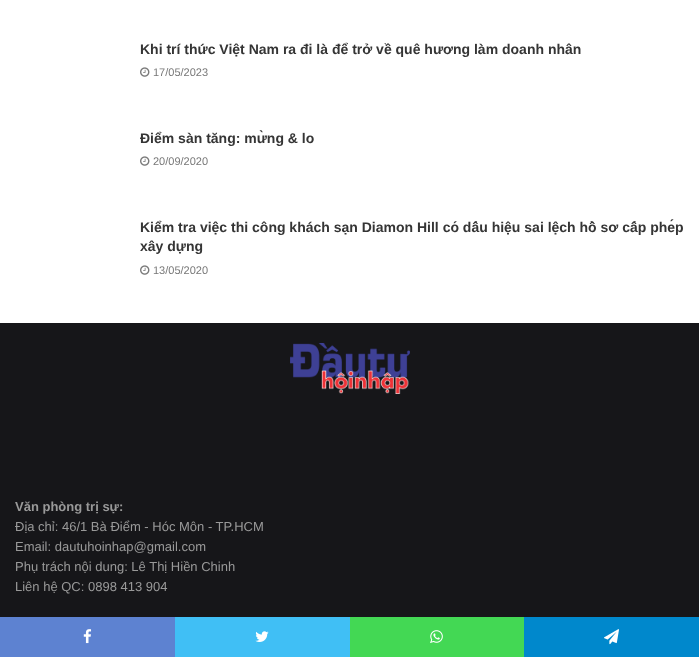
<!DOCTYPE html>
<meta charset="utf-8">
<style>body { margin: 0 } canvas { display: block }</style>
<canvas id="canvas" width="699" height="657"></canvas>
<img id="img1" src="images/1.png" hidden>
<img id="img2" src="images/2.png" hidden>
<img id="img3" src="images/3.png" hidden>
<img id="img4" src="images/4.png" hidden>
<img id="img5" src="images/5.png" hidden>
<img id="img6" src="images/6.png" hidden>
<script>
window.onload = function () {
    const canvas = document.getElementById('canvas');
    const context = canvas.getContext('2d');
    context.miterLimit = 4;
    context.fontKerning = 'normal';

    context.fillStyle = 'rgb(255, 255, 255)';
    context.fillRect(0, 0, 699, 657);
    context.drawImage(document.getElementById('img1'), 140, 67, 10, 10);
    context.drawImage(document.getElementById('img1'), 140, 156, 10, 10);
    context.drawImage(document.getElementById('img1'), 140, 265, 10, 10);
    context.fillStyle = 'rgb(22, 22, 25)';
    context.fillRect(0, 323, 699, 294);
    context.drawImage(document.getElementById('img2'), 290, 343, 120, 51);
    context.fillStyle = 'rgb(93, 130, 209)';
    context.fillRect(0, 617, 175, 40);
    context.drawImage(document.getElementById('img3'), 83, 629, 9, 15);
    context.fillStyle = 'rgb(64, 191, 245)';
    context.fillRect(175, 617, 175, 40);
    context.drawImage(document.getElementById('img4'), 255, 631, 14, 11);
    context.fillStyle = 'rgb(67, 216, 84)';
    context.fillRect(350, 617, 174, 40);
    context.drawImage(document.getElementById('img5'), 430, 630, 13, 13);
    context.fillStyle = 'rgb(0, 136, 204)';
    context.fillRect(524, 617, 175, 40);
    context.drawImage(document.getElementById('img6'), 604, 629, 15, 16);
    context.font = 'bold 14px Liberation Sans';
    context.fillStyle = 'rgb(53, 53, 53)';
    context.fillText('Khi trí thức Việt Nam ra đi là để trở về quê hương làm doanh nhân', 140, 54);
    context.font = '11px Liberation Sans';
    context.fillStyle = 'rgb(120, 120, 120)';
    context.fillText('17/05/2023', 153, 76);
    context.font = 'bold 14px Liberation Sans';
    context.fillStyle = 'rgb(53, 53, 53)';
    context.fillText('Điểm sàn tăng: mừng & lo', 140, 143);
    context.font = '11px Liberation Sans';
    context.fillStyle = 'rgb(120, 120, 120)';
    context.fillText('20/09/2020', 153, 165);
    context.font = 'bold 14px Liberation Sans';
    context.fillStyle = 'rgb(53, 53, 53)';
    context.fillText('Kiểm tra việc thi công khách sạn Diamon Hill có dấu hiệu sai lệch hồ sơ cấp phép', 140, 232);
    context.fillText('xây dựng', 140, 251);
    context.font = '11px Liberation Sans';
    context.fillStyle = 'rgb(120, 120, 120)';
    context.fillText('13/05/2020', 153, 274);
    context.font = 'bold 13px Liberation Sans';
    context.fillStyle = 'rgb(153, 153, 153)';
    context.fillText('Văn phòng trị sự:', 15, 511);
    context.font = '13px Liberation Sans';
    context.fillText('Địa chỉ: 46/1 Bà Điểm - Hóc Môn - TP.HCM', 15, 531);
    context.fillText('Email: dautuhoinhap@gmail.com', 15, 551);
    context.fillText('Phụ trách nội dung: Lê Thị Hiền Chinh', 15, 571);
    context.fillText('Liên hệ QC: 0898 413 904', 15, 591);
};
</script>
